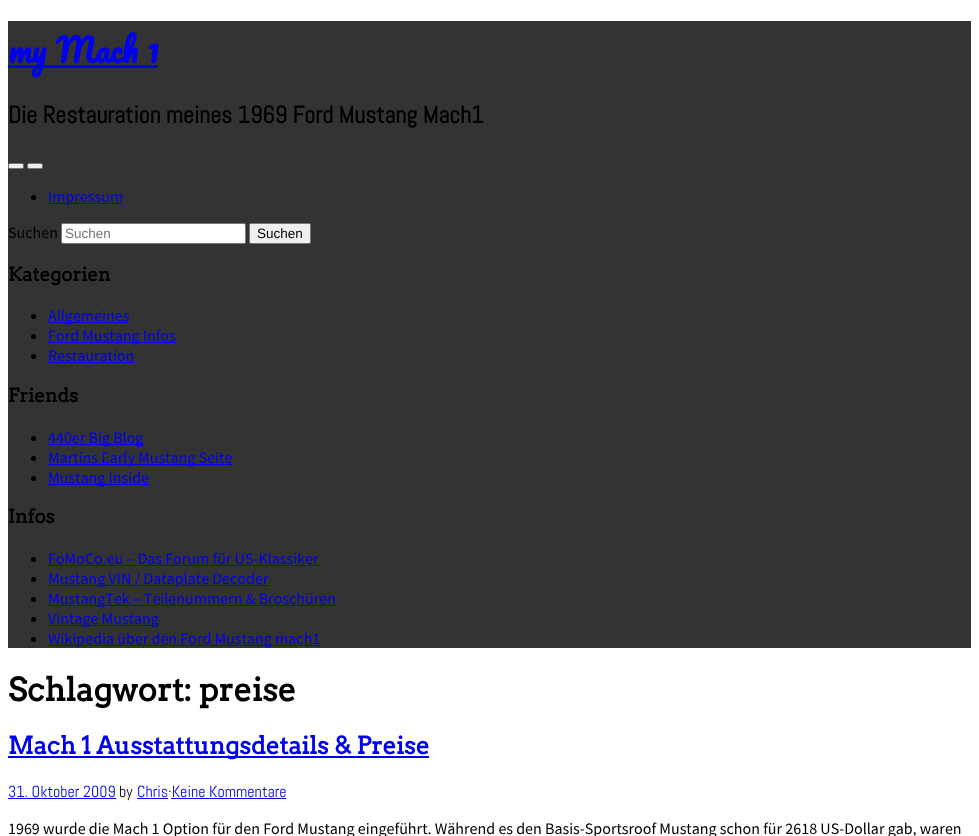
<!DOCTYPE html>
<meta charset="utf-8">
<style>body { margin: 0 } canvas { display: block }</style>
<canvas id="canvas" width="979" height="836"></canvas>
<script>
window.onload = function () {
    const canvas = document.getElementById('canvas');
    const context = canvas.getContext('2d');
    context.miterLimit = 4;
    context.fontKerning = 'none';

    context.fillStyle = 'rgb(255, 255, 255)';
    context.fillRect(0, 0, 979, 836);
    context.fillStyle = 'rgb(51, 51, 51)';
    context.fillRect(8, 21, 963, 627);
    context.fillStyle = 'rgb(0, 0, 238)';
    context.fillRect(8, 65, 150, 3);
    context.fillStyle = 'rgb(239, 239, 239)';
    context.beginPath();
    context.roundRect(8.5, 163.5, 15, 5, 1.5);
    context.fill();
    context.strokeStyle = 'rgb(118, 118, 118)';
    context.stroke();
    context.beginPath();
    context.roundRect(27.5, 163.5, 15, 5, 1.5);
    context.fill();
    context.stroke();
    context.fillStyle = 'rgb(0, 0, 0)';
    context.beginPath();
    context.arc(33.5, 197.5, 2.5, 0, 2 * Math.PI);
    context.fill();
    context.fillStyle = 'rgb(0, 0, 238)';
    context.fillRect(48, 203, 75, 1);
    context.fillStyle = 'rgb(255, 255, 255)';
    context.beginPath();
    context.roundRect(61.5, 223.5, 184, 20, 1.5);
    context.fill();
    context.stroke();
    context.fillStyle = 'rgb(239, 239, 239)';
    context.beginPath();
    context.roundRect(249.5, 223.5, 61, 20, 1.5);
    context.fill();
    context.stroke();
    context.fillStyle = 'rgb(0, 0, 0)';
    context.beginPath();
    context.arc(33.5, 316.5, 2.5, 0, 2 * Math.PI);
    context.fill();
    context.fillStyle = 'rgb(0, 0, 238)';
    context.fillRect(48, 322, 81, 1);
    context.fillStyle = 'rgb(0, 0, 0)';
    context.beginPath();
    context.arc(33.5, 336.5, 2.5, 0, 2 * Math.PI);
    context.fill();
    context.fillStyle = 'rgb(0, 0, 238)';
    context.fillRect(48, 342, 128, 1);
    context.fillStyle = 'rgb(0, 0, 0)';
    context.beginPath();
    context.arc(33.5, 356.5, 2.5, 0, 2 * Math.PI);
    context.fill();
    context.fillStyle = 'rgb(0, 0, 238)';
    context.fillRect(48, 362, 86, 1);
    context.fillStyle = 'rgb(0, 0, 0)';
    context.beginPath();
    context.arc(33.5, 438.5, 2.5, 0, 2 * Math.PI);
    context.fill();
    context.fillStyle = 'rgb(0, 0, 238)';
    context.fillRect(48, 444, 95, 1);
    context.fillStyle = 'rgb(0, 0, 0)';
    context.beginPath();
    context.arc(33.5, 458.5, 2.5, 0, 2 * Math.PI);
    context.fill();
    context.fillStyle = 'rgb(0, 0, 238)';
    context.fillRect(48, 464, 184, 1);
    context.fillStyle = 'rgb(0, 0, 0)';
    context.beginPath();
    context.arc(33.5, 478.5, 2.5, 0, 2 * Math.PI);
    context.fill();
    context.fillStyle = 'rgb(0, 0, 238)';
    context.fillRect(48, 484, 101, 1);
    context.fillStyle = 'rgb(0, 0, 0)';
    context.beginPath();
    context.arc(33.5, 559.5, 2.5, 0, 2 * Math.PI);
    context.fill();
    context.fillStyle = 'rgb(0, 0, 238)';
    context.fillRect(48, 565, 271, 1);
    context.fillStyle = 'rgb(0, 0, 0)';
    context.beginPath();
    context.arc(33.5, 579.5, 2.5, 0, 2 * Math.PI);
    context.fill();
    context.fillStyle = 'rgb(0, 0, 238)';
    context.fillRect(48, 585, 220, 1);
    context.fillStyle = 'rgb(0, 0, 0)';
    context.beginPath();
    context.arc(33.5, 599.5, 2.5, 0, 2 * Math.PI);
    context.fill();
    context.fillStyle = 'rgb(0, 0, 238)';
    context.fillRect(48, 605, 288, 1);
    context.fillStyle = 'rgb(0, 0, 0)';
    context.beginPath();
    context.arc(33.5, 619.5, 2.5, 0, 2 * Math.PI);
    context.fill();
    context.fillStyle = 'rgb(0, 0, 238)';
    context.fillRect(48, 625, 111, 1);
    context.fillStyle = 'rgb(0, 0, 0)';
    context.beginPath();
    context.arc(33.5, 639.5, 2.5, 0, 2 * Math.PI);
    context.fill();
    context.fillStyle = 'rgb(0, 0, 238)';
    context.fillRect(48, 645, 272, 1);
    context.fillRect(8, 756, 421, 2);
    context.fillRect(8, 798, 108, 1);
    context.fillRect(137, 798, 31, 1);
    context.fillRect(171, 798, 115, 1);
    context.wordSpacing = '1px';
    context.font = 'bold 32px Pacifico';
    context.fillText('my Mach 1', 8, 63);
    context.wordSpacing = '0px';
    context.font = 'bold 24px Abel';
    context.fillStyle = 'rgb(0, 0, 0)';
    context.fillText('Die Restauration meines 1969 Ford Mustang Mach1', 8, 123);
    context.font = '16px Source Sans Pro';
    context.fillStyle = 'rgb(0, 0, 238)';
    context.fillText('Impressum', 48, 202);
    context.fillStyle = 'rgb(0, 0, 0)';
    context.fillText('Suchen', 8, 238);
    context.font = '13.5px Liberation Sans';
    context.fillStyle = 'rgb(117, 117, 117)';
    context.fillText('Suchen', 65, 238);
    context.fillStyle = 'rgb(0, 0, 0)';
    context.fillText('Suchen', 257, 238);
    context.font = 'bold 18.75px Arvo';
    context.fillText('Kategorien', 8, 281);
    context.font = '16px Source Sans Pro';
    context.fillStyle = 'rgb(0, 0, 238)';
    context.fillText('Allgemeines', 48, 321);
    context.fillText('Ford Mustang Infos', 48, 341);
    context.fillText('Restauration', 48, 361);
    context.font = 'bold 18.75px Arvo';
    context.fillStyle = 'rgb(0, 0, 0)';
    context.fillText('Friends', 8, 402);
    context.font = '16px Source Sans Pro';
    context.fillStyle = 'rgb(0, 0, 238)';
    context.fillText('440er Big Blog', 48, 443);
    context.fillText('Martins Early Mustang Seite', 48, 463);
    context.fillText('Mustang Inside', 48, 483);
    context.font = 'bold 18.75px Arvo';
    context.fillStyle = 'rgb(0, 0, 0)';
    context.fillText('Infos', 8, 523);
    context.font = '16px Source Sans Pro';
    context.fillStyle = 'rgb(0, 0, 238)';
    context.fillText('FoMoCo.eu – Das Forum für US-Klassiker', 48, 564);
    context.fillText('Mustang VIN / Dataplate Decoder', 48, 584);
    context.fillText('MustangTek – Teilenummern & Broschüren', 48, 604);
    context.fillText('Vintage Mustang', 48, 624);
    context.fillText('Wikipedia über den Ford Mustang mach1', 48, 644);
    context.font = 'bold 32px Arvo';
    context.fillStyle = 'rgb(0, 0, 0)';
    context.fillText('Schlagwort: preise', 8, 701);
    context.font = 'bold 24px Arvo';
    context.fillStyle = 'rgb(0, 0, 238)';
    context.fillText('Mach 1 Ausstattungsdetails & Preise', 8, 754);
    context.font = '16px Abel';
    context.fillText('31. Oktober 2009', 8, 797);
    context.fillStyle = 'rgb(0, 0, 0)';
    context.fillText('by', 119, 797);
    context.fillStyle = 'rgb(0, 0, 238)';
    context.fillText('Chris Keine Kommentare', 137, 797);
    context.fillStyle = 'rgb(0, 0, 0)';
    context.fillText('·', 168, 797);
    context.font = '16px Source Sans Pro';
    context.fillText('1969 wurde die Mach 1 Option für den Ford Mustang eingeführt. Während es den Basis-Sportsroof Mustang schon für 2618 US-Dollar gab, waren', 8, 834);
};
</script>
